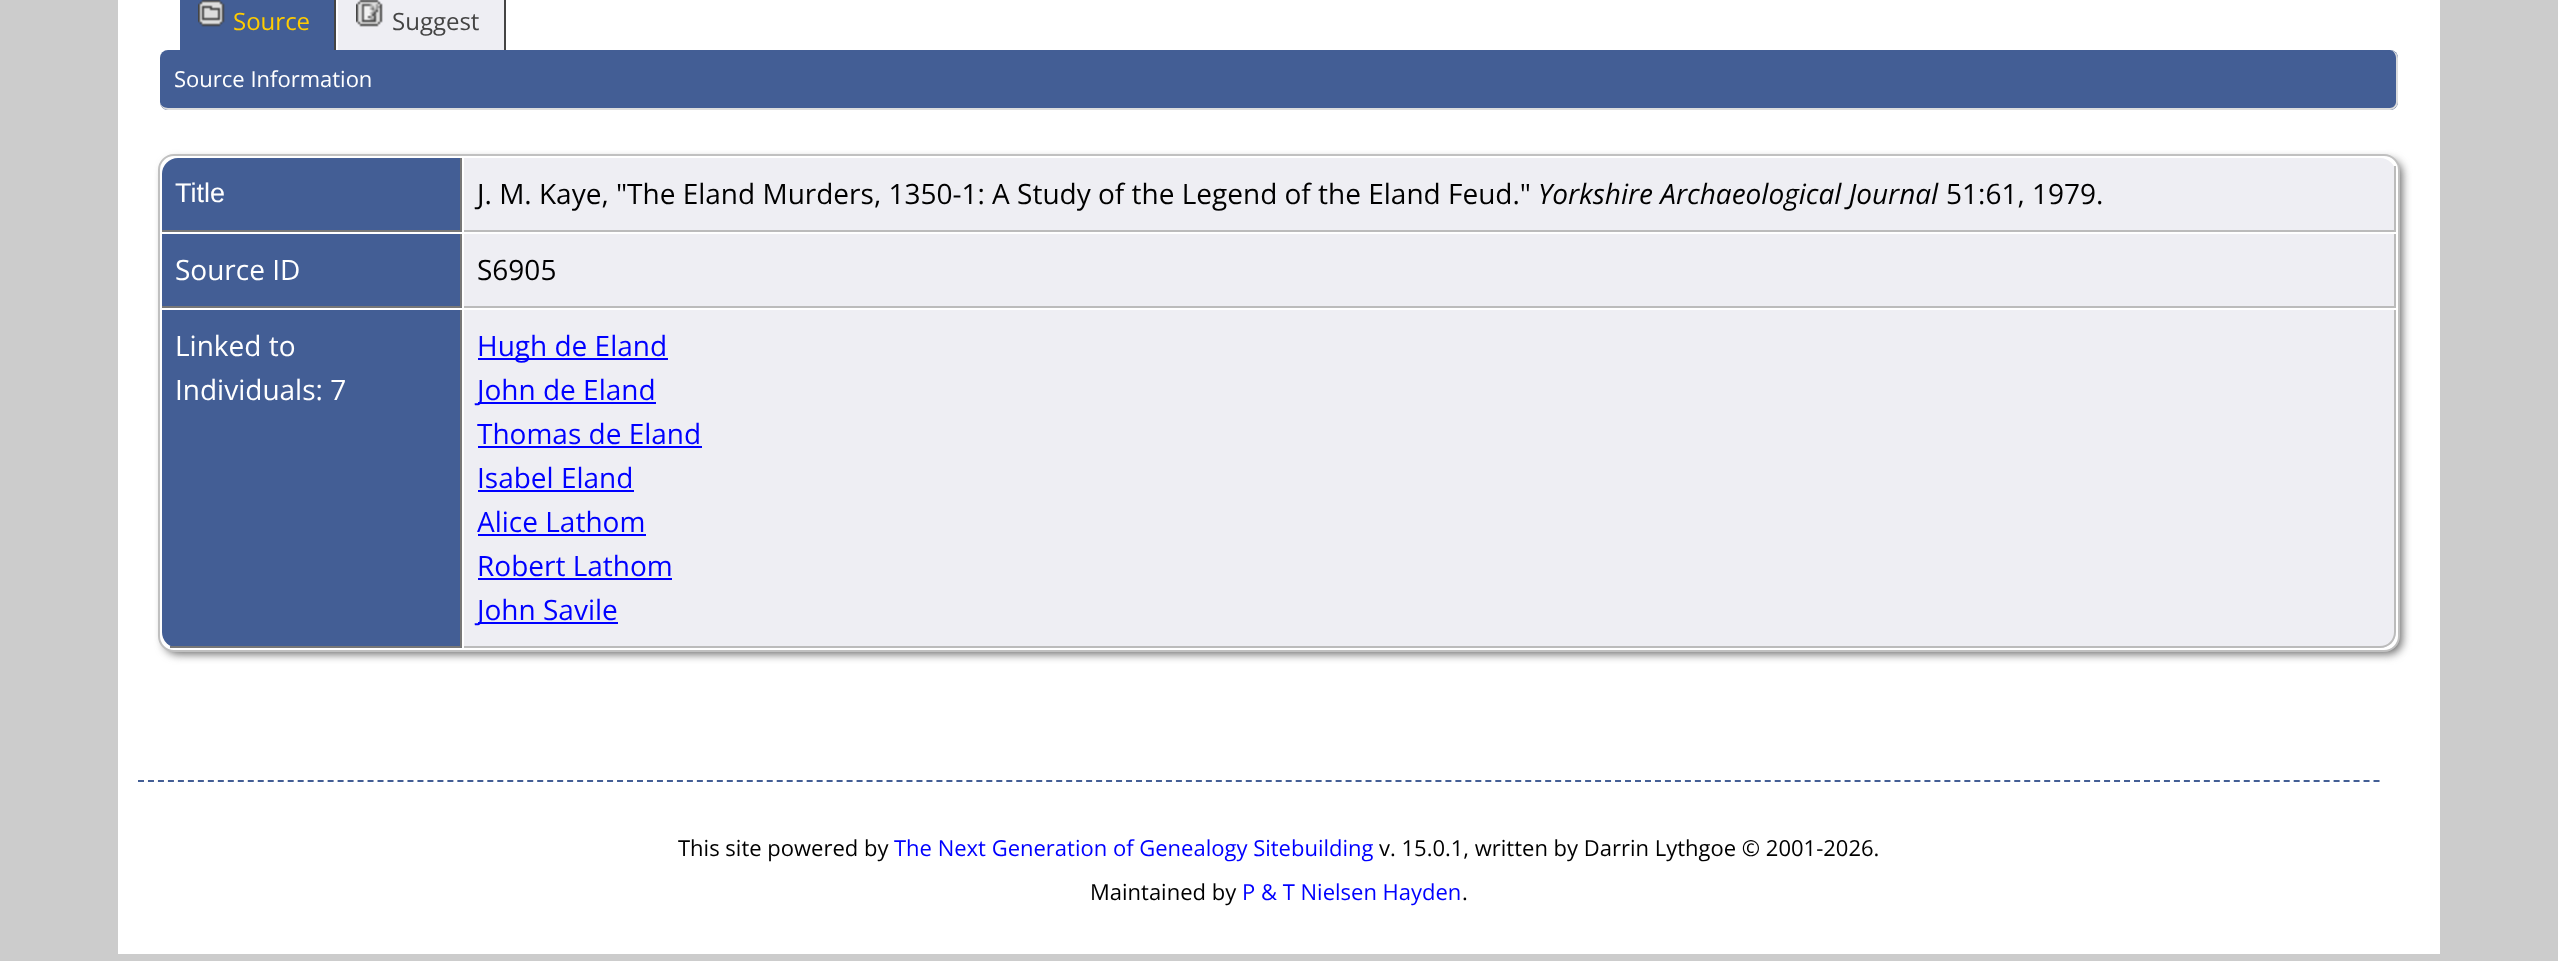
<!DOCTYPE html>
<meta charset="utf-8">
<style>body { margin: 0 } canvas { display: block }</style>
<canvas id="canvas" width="2558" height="961"></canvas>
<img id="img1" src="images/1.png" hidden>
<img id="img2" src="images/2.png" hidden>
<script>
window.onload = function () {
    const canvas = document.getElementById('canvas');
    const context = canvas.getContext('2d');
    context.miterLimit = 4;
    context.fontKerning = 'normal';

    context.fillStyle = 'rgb(204, 204, 204)';
    context.fillRect(0, 0, 2558, 961);
    context.fillStyle = 'rgb(255, 255, 255)';
    context.fillRect(118, 0, 2322, 954);
    context.fillStyle = 'rgb(67, 94, 149)';
    context.fillRect(180, 0, 154, 50);
    context.fillStyle = 'rgb(68, 68, 68)';
    context.fillRect(334, 0, 2, 50);
    context.drawImage(document.getElementById('img1'), 198, 0, 27, 27);
    context.fillStyle = 'rgb(238, 238, 243)';
    context.fillRect(338, 0, 166, 50);
    context.fillStyle = 'rgb(68, 68, 68)';
    context.fillRect(504, 0, 2, 50);
    context.drawImage(document.getElementById('img2'), 356, 0, 27, 27);
    context.fillStyle = 'rgb(67, 94, 149)';
    context.beginPath();
    context.roundRect(160, 50, 2238, 60, 8);
    context.fill();
    context.fillStyle = 'rgb(221, 221, 221)';
    context.beginPath();
    context.moveTo(168, 50);
    context.lineTo(2390, 50);
    context.bezierCurveTo(2394, 50, 2398, 54, 2398, 58);
    context.lineTo(2398, 102);
    context.bezierCurveTo(2398, 106, 2394, 110, 2390, 110);
    context.lineTo(168, 110);
    context.bezierCurveTo(164, 110, 160, 106, 160, 102);
    context.lineTo(160, 58);
    context.bezierCurveTo(160, 54, 164, 50, 168, 50);
    context.closePath();
    context.moveTo(168, 50);
    context.lineTo(2390, 50);
    context.bezierCurveTo(2393, 50, 2396, 54, 2396, 58);
    context.lineTo(2396, 102);
    context.bezierCurveTo(2396, 105, 2393, 108, 2390, 108);
    context.lineTo(168, 108);
    context.bezierCurveTo(164, 108, 160, 105, 160, 102);
    context.lineTo(160, 58);
    context.bezierCurveTo(160, 54, 164, 50, 168, 50);
    context.closePath();
    context.fill('evenodd');
    context.fillStyle = 'rgb(102, 102, 102)';
    context.filter = 'blur(5px)';
    context.beginPath();
    context.roundRect(164, 160, 2238, 494, 14);
    context.fill();
    context.filter = 'none';
    context.fillStyle = 'rgb(255, 255, 255)';
    context.beginPath();
    context.roundRect(159, 155, 2240, 496, 15);
    context.fill();
    context.strokeStyle = 'rgb(192, 192, 192)';
    context.lineWidth = 2;
    context.stroke();
    context.fillStyle = 'rgb(67, 94, 149)';
    context.beginPath();
    context.roundRect(162, 158, 300, 74, [16, 0, 0, 0]);
    context.fill();
    context.fillStyle = 'rgb(119, 119, 119)';
    context.fillRect(460, 158, 2, 74);
    context.fillRect(162, 230, 300, 2);
    context.fillStyle = 'rgb(238, 238, 243)';
    context.beginPath();
    context.roundRect(464, 158, 1932, 74, [0, 16, 0, 0]);
    context.fill();
    context.fillStyle = 'rgb(187, 187, 187)';
    context.fillRect(2394, 166, 2, 66);
    context.fillRect(464, 230, 1932, 2);
    context.fillStyle = 'rgb(67, 94, 149)';
    context.fillRect(162, 234, 298, 72);
    context.fillStyle = 'rgb(119, 119, 119)';
    context.fillRect(460, 234, 2, 74);
    context.fillRect(162, 306, 300, 2);
    context.fillStyle = 'rgb(238, 238, 243)';
    context.fillRect(464, 234, 1930, 72);
    context.fillStyle = 'rgb(187, 187, 187)';
    context.fillRect(2394, 234, 2, 74);
    context.fillRect(464, 306, 1932, 2);
    context.fillStyle = 'rgb(67, 94, 149)';
    context.beginPath();
    context.roundRect(162, 310, 300, 338, [0, 0, 0, 16]);
    context.fill();
    context.fillStyle = 'rgb(119, 119, 119)';
    context.fillRect(460, 310, 2, 338);
    context.fillRect(170, 646, 292, 2);
    context.fillStyle = 'rgb(238, 238, 243)';
    context.beginPath();
    context.roundRect(464, 310, 1932, 338, [0, 0, 16, 0]);
    context.fill();
    context.fillStyle = 'rgb(187, 187, 187)';
    context.beginPath();
    context.moveTo(464, 310);
    context.lineTo(2396, 310);
    context.lineTo(2396, 632);
    context.bezierCurveTo(2396, 641, 2389, 648, 2380, 648);
    context.lineTo(464, 648);
    context.closePath();
    context.moveTo(464, 310);
    context.lineTo(2394, 310);
    context.lineTo(2394, 632);
    context.bezierCurveTo(2394, 640, 2388, 646, 2380, 646);
    context.lineTo(464, 646);
    context.closePath();
    context.fill('evenodd');
    context.fillStyle = 'rgb(0, 0, 255)';
    context.fillRect(478, 358, 190, 2);
    context.fillRect(478, 402, 178, 2);
    context.fillRect(478, 446, 224, 2);
    context.fillRect(478, 490, 156, 2);
    context.fillRect(478, 534, 168, 2);
    context.fillRect(478, 578, 194, 2);
    context.fillRect(478, 622, 140, 2);
    context.beginPath();
    context.moveTo(138, 781);
    context.lineTo(2380, 781);
    context.strokeStyle = 'rgb(67, 94, 149)';
    context.setLineDash([6, 3.98]);
    context.stroke();
    context.font = '24px Open Sans';
    context.fillStyle = 'rgb(255, 204, 0)';
    context.fillText('Source', 233, 30);
    context.fillStyle = 'rgb(68, 68, 68)';
    context.fillText('Suggest', 392, 30);
    context.font = '22px Open Sans';
    context.fillStyle = 'rgb(255, 255, 255)';
    context.fillText('Source Information', 174, 87);
    context.font = '27px Liberation Sans';
    context.fillText('Title', 175, 202);
    context.font = '28px Open Sans';
    context.fillStyle = 'rgb(0, 0, 0)';
    context.fillText('J. M. Kaye, "The Eland Murders, 1350-1: A Study of the Legend of the Eland Feud."', 477, 204);
    context.font = 'italic 28px Open Sans';
    context.fillText('Yorkshire Archaeological Journal', 1538, 204);
    context.font = '28px Open Sans';
    context.fillText('51:61, 1979.', 1946, 204);
    context.fillStyle = 'rgb(255, 255, 255)';
    context.fillText('Source ID', 175, 280);
    context.fillStyle = 'rgb(0, 0, 0)';
    context.fillText('S6905', 477, 280);
    context.fillStyle = 'rgb(255, 255, 255)';
    context.fillText('Linked to', 175, 356);
    context.fillText('Individuals: 7', 175, 400);
    context.fillStyle = 'rgb(0, 0, 255)';
    context.fillText('Hugh de Eland', 477, 356);
    context.fillText('John de Eland', 477, 400);
    context.fillText('Thomas de Eland', 477, 444);
    context.fillText('Isabel Eland', 477, 488);
    context.fillText('Alice Lathom', 477, 532);
    context.fillText('Robert Lathom', 477, 576);
    context.fillText('John Savile', 477, 620);
    context.font = '22px Open Sans';
    context.fillStyle = 'rgb(0, 0, 0)';
    context.fillText('This site powered by', 678, 856);
    context.fillStyle = 'rgb(0, 0, 255)';
    context.fillText('The Next Generation of Genealogy Sitebuilding', 894, 856);
    context.fillStyle = 'rgb(0, 0, 0)';
    context.fillText('v. 15.0.1, written by Darrin Lythgoe © 2001-2026.', 1379, 856);
    context.fillText('Maintained by', 1090, 900);
    context.fillStyle = 'rgb(0, 0, 255)';
    context.fillText('P & T Nielsen Hayden', 1242, 900);
    context.fillStyle = 'rgb(0, 0, 0)';
    context.fillText('.', 1462, 900);
};
</script>
